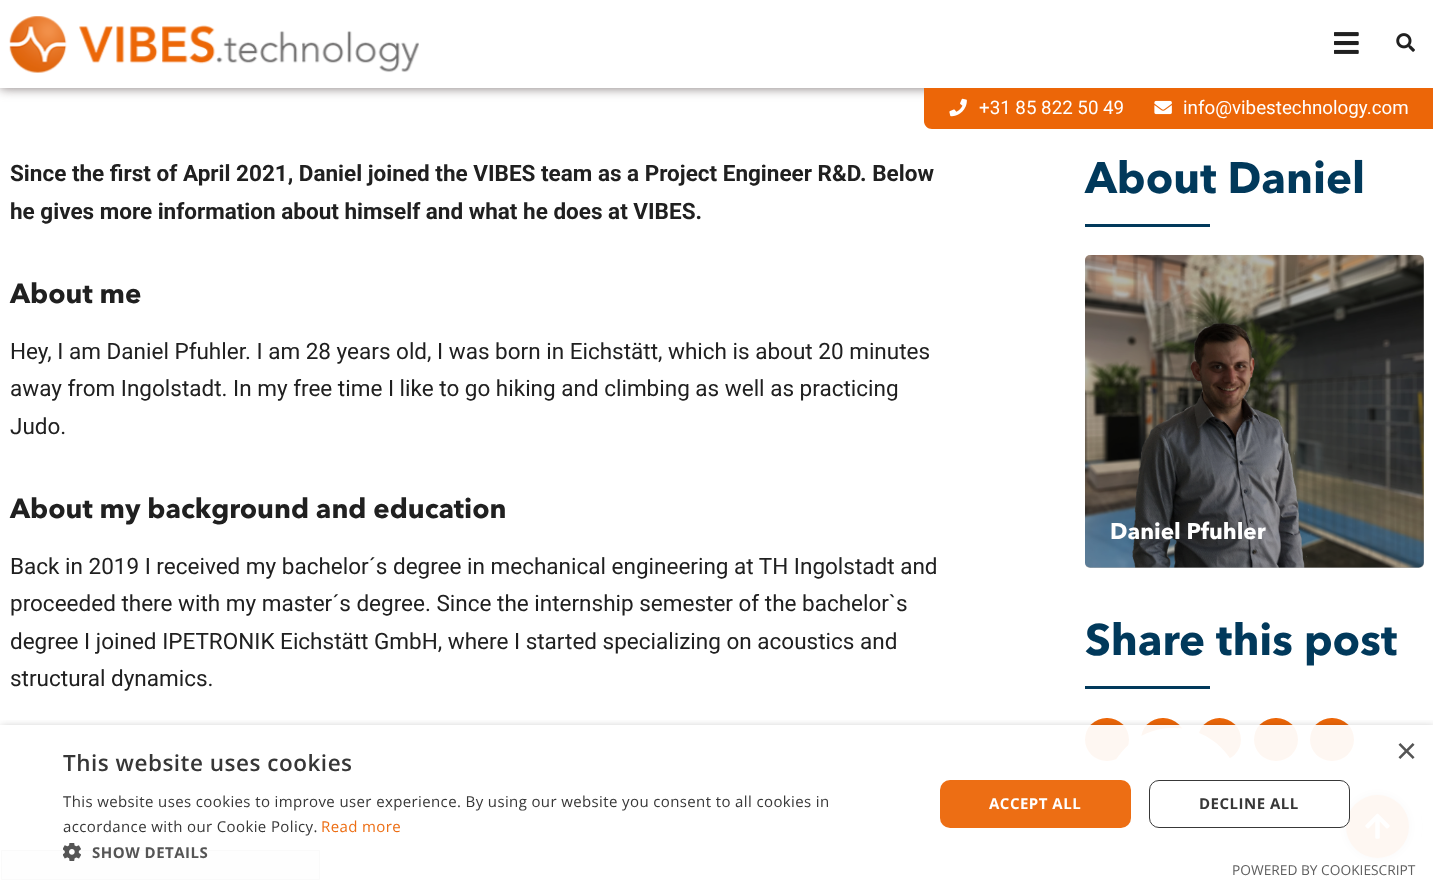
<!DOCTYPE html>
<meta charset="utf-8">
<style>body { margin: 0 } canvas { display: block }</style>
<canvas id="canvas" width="1433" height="882"></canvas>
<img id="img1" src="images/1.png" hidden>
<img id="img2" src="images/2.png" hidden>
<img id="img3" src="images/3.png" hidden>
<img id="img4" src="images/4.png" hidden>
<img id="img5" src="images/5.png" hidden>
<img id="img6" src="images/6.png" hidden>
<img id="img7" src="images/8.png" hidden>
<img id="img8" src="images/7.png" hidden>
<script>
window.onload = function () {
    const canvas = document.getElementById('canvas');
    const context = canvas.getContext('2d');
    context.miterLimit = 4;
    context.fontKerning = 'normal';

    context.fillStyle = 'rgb(255, 255, 255)';
    context.fillRect(0, 0, 1433, 882);
    context.fillStyle = 'rgb(127, 117, 117)';
    context.filter = 'blur(6px)';
    context.beginPath();
    context.rect(0, 0, 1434, 88);
    context.fill();
    context.filter = 'none';
    context.fillStyle = 'rgb(255, 255, 255)';
    context.fillRect(0, 0, 1433, 88);
    context.drawImage(document.getElementById('img1'), 9, 16, 410, 57);
    context.drawImage(document.getElementById('img2'), 1334, 32, 25, 22);
    context.drawImage(document.getElementById('img3'), 1396, 33, 19, 19);
    context.fillStyle = 'rgb(236, 102, 8)';
    context.beginPath();
    context.moveTo(924, 88);
    context.lineTo(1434, 88);
    context.lineTo(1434, 129);
    context.lineTo(932, 129);
    context.bezierCurveTo(927.5, 129, 924, 125.5, 924, 121);
    context.closePath();
    context.fill();
    context.drawImage(document.getElementById('img4'), 949, 98, 18, 19);
    context.drawImage(document.getElementById('img5'), 1154, 100, 18, 15);
    context.fillStyle = 'rgb(1, 57, 91)';
    context.fillRect(1085, 224, 125, 3);
    context.drawImage(document.getElementById('img6'), 1085, 255, 339, 313);
    context.fillStyle = 'rgba(0, 0, 0, 0.3)';
    context.beginPath();
    context.roundRect(1085, 255, 339, 313, 5);
    context.fill();
    context.fillStyle = 'rgb(1, 57, 91)';
    context.fillRect(1085, 686, 125, 3);
    context.fillStyle = 'rgb(236, 102, 8)';
    context.beginPath();
    context.roundRect(1085, 718, 44, 43, 21.5);
    context.fill();
    context.beginPath();
    context.roundRect(1141, 718, 44, 43, 21.5);
    context.fill();
    context.beginPath();
    context.arc(1219.5, 739.5, 21.5, 0, 2 * Math.PI);
    context.fill();
    context.fillStyle = 'rgb(255, 255, 255)';
    context.beginPath();
    context.moveTo(1232, 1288);
    context.lineTo(1116, 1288);
    context.lineTo(1116, 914);
    context.lineTo(1232, 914);
    context.closePath();
    context.moveTo(1173, 863);
    context.bezierCurveTo(1136, 863, 1106, 832, 1106, 795);
    context.bezierCurveTo(1106, 758, 1136, 728, 1173, 728);
    context.bezierCurveTo(1211, 728, 1241, 758, 1241, 795);
    context.bezierCurveTo(1241, 832, 1211, 863, 1173, 863);
    context.closePath();
    context.moveTo(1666, 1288);
    context.lineTo(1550, 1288);
    context.lineTo(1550, 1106);
    context.bezierCurveTo(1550, 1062, 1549, 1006, 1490, 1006);
    context.bezierCurveTo(1430, 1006, 1420, 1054, 1420, 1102);
    context.lineTo(1420, 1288);
    context.lineTo(1304, 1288);
    context.lineTo(1304, 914);
    context.lineTo(1416, 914);
    context.lineTo(1416, 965);
    context.lineTo(1417, 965);
    context.bezierCurveTo(1433, 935, 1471, 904, 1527, 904);
    context.bezierCurveTo(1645, 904, 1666, 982, 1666, 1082);
    context.closePath();
    context.fill();
    context.fillStyle = 'rgb(236, 102, 8)';
    context.beginPath();
    context.roundRect(1254, 718, 44, 43, 21.5);
    context.fill();
    context.beginPath();
    context.roundRect(1310, 718, 44, 43, 21.5);
    context.fill();
    context.fillStyle = 'rgb(230, 230, 230)';
    context.beginPath();
    context.rect(1.5, 850.5, 318, 29);
    context.fill();
    context.strokeStyle = 'rgb(149, 149, 149)';
    context.stroke();
    context.fillStyle = 'rgb(127, 117, 117)';
    context.filter = 'blur(6px)';
    context.beginPath();
    context.roundRect(1346, 795, 63, 63, 31.5);
    context.fill();
    context.filter = 'none';
    context.fillStyle = 'rgb(236, 102, 8)';
    context.beginPath();
    context.arc(1377.5, 826.5, 31.5, 0, 2 * Math.PI);
    context.fill();
    context.drawImage(document.getElementById('img7'), 1365, 813, 25, 26);
    context.save();
    context.beginPath();
    context.rect(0, 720, 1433, 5);
    context.clip();
    context.fillStyle = 'rgba(0, 0, 0, 0.33)';
    context.filter = 'blur(5px)';
    context.beginPath();
    context.rect(1, 728, 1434, 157);
    context.fill();
    context.filter = 'none';
    context.restore();
    context.fillStyle = 'rgba(255, 255, 255, 0.95)';
    context.fillRect(1, 725, 1420, 155);
    context.drawImage(document.getElementById('img8'), 63, 843, 18, 18);
    context.fillStyle = 'rgb(237, 110, 20)';
    context.beginPath();
    context.roundRect(940, 780, 191, 48, 10);
    context.fill();
    context.fillStyle = 'rgba(255, 255, 255, 0.95)';
    context.beginPath();
    context.roundRect(1149, 780, 201, 48, 10);
    context.fill();
    context.beginPath();
    context.roundRect(1149.5, 780.5, 200, 47, 9.5);
    context.strokeStyle = 'rgba(45, 45, 45, 0.95)';
    context.stroke();
    context.font = '18.75px Roboto';
    context.fillStyle = 'rgb(255, 255, 255)';
    context.fillText('+31 85 822 50 49', 979, 114);
    context.fillText('info@vibestechnology.com', 1183, 114);
    context.font = 'bold 22.5px Roboto';
    context.fillStyle = 'rgb(32, 32, 32)';
    context.fillText('Since the first of April 2021, Daniel joined the VIBES team as a Project Engineer R&D. Below', 10, 181);
    context.fillText('he gives more information about himself and what he does at VIBES.', 10, 219);
    context.font = 'bold 27.5px Avenir Next';
    context.fillText('About me', 10, 303);
    context.font = '22.5px Roboto';
    context.fillText('Hey, I am Daniel Pfuhler. I am 28 years old, I was born in Eichstätt, which is about 20 minutes', 10, 359);
    context.fillText('away from Ingolstadt. In my free time I like to go hiking and climbing as well as practicing', 10, 396);
    context.fillText('Judo.', 10, 434);
    context.font = 'bold 27.5px Avenir Next';
    context.fillText('About my background and education', 10, 518);
    context.font = '22.5px Roboto';
    context.fillText('Back in 2019 I received my bachelor´s degree in mechanical engineering at TH Ingolstadt and', 10, 574);
    context.fillText('proceeded there with my master´s degree. Since the internship semester of the bachelor`s', 10, 611);
    context.fillText('degree I joined IPETRONIK Eichstätt GmbH, where I started specializing on acoustics and', 10, 649);
    context.fillText('structural dynamics.', 10, 686);
    context.font = 'bold 43.75px Avenir Next';
    context.fillStyle = 'rgb(1, 57, 91)';
    context.fillText('About Daniel', 1085, 193);
    context.font = 'bold 22.5px Avenir Next';
    context.fillStyle = 'rgb(255, 255, 255)';
    context.fillText('Daniel Pfuhler', 1110, 539);
    context.font = 'bold 43.75px Avenir Next';
    context.fillStyle = 'rgb(1, 57, 91)';
    context.fillText('Share this post', 1085, 655);
    context.font = '36px Liberation Sans';
    context.fillStyle = 'rgb(85, 85, 85)';
    context.fillText('×', 1396, 763);
    context.letterSpacing = '0.5px';
    context.font = '600 22.5px Open Sans';
    context.fillStyle = 'rgb(55, 55, 55)';
    context.fillText('This website uses cookies', 63, 771);
    context.letterSpacing = '0.38px';
    context.font = '15px Open Sans';
    context.fillText('This website uses cookies to improve user experience. By using our website you consent to all cookies in', 63, 807);
    context.fillText('accordance with our Cookie Policy.', 63, 832);
    context.fillStyle = 'rgb(237, 110, 20)';
    context.fillText('Read more', 321, 832);
    context.letterSpacing = '0.5px';
    context.font = 'bold 15px Open Sans';
    context.fillStyle = 'rgb(85, 85, 85)';
    context.fillText('SHOW DETAILS', 92, 858);
    context.fillStyle = 'rgb(255, 255, 255)';
    context.fillText('ACCEPT ALL', 989, 809);
    context.fillStyle = 'rgb(55, 55, 55)';
    context.fillText('DECLINE ALL', 1199, 809);
    context.letterSpacing = '0px';
    context.font = '13.75px Open Sans';
    context.fillStyle = 'rgb(95, 95, 95)';
    context.fillText('POWERED BY COOKIESCRIPT', 1232, 875);
};
</script>
